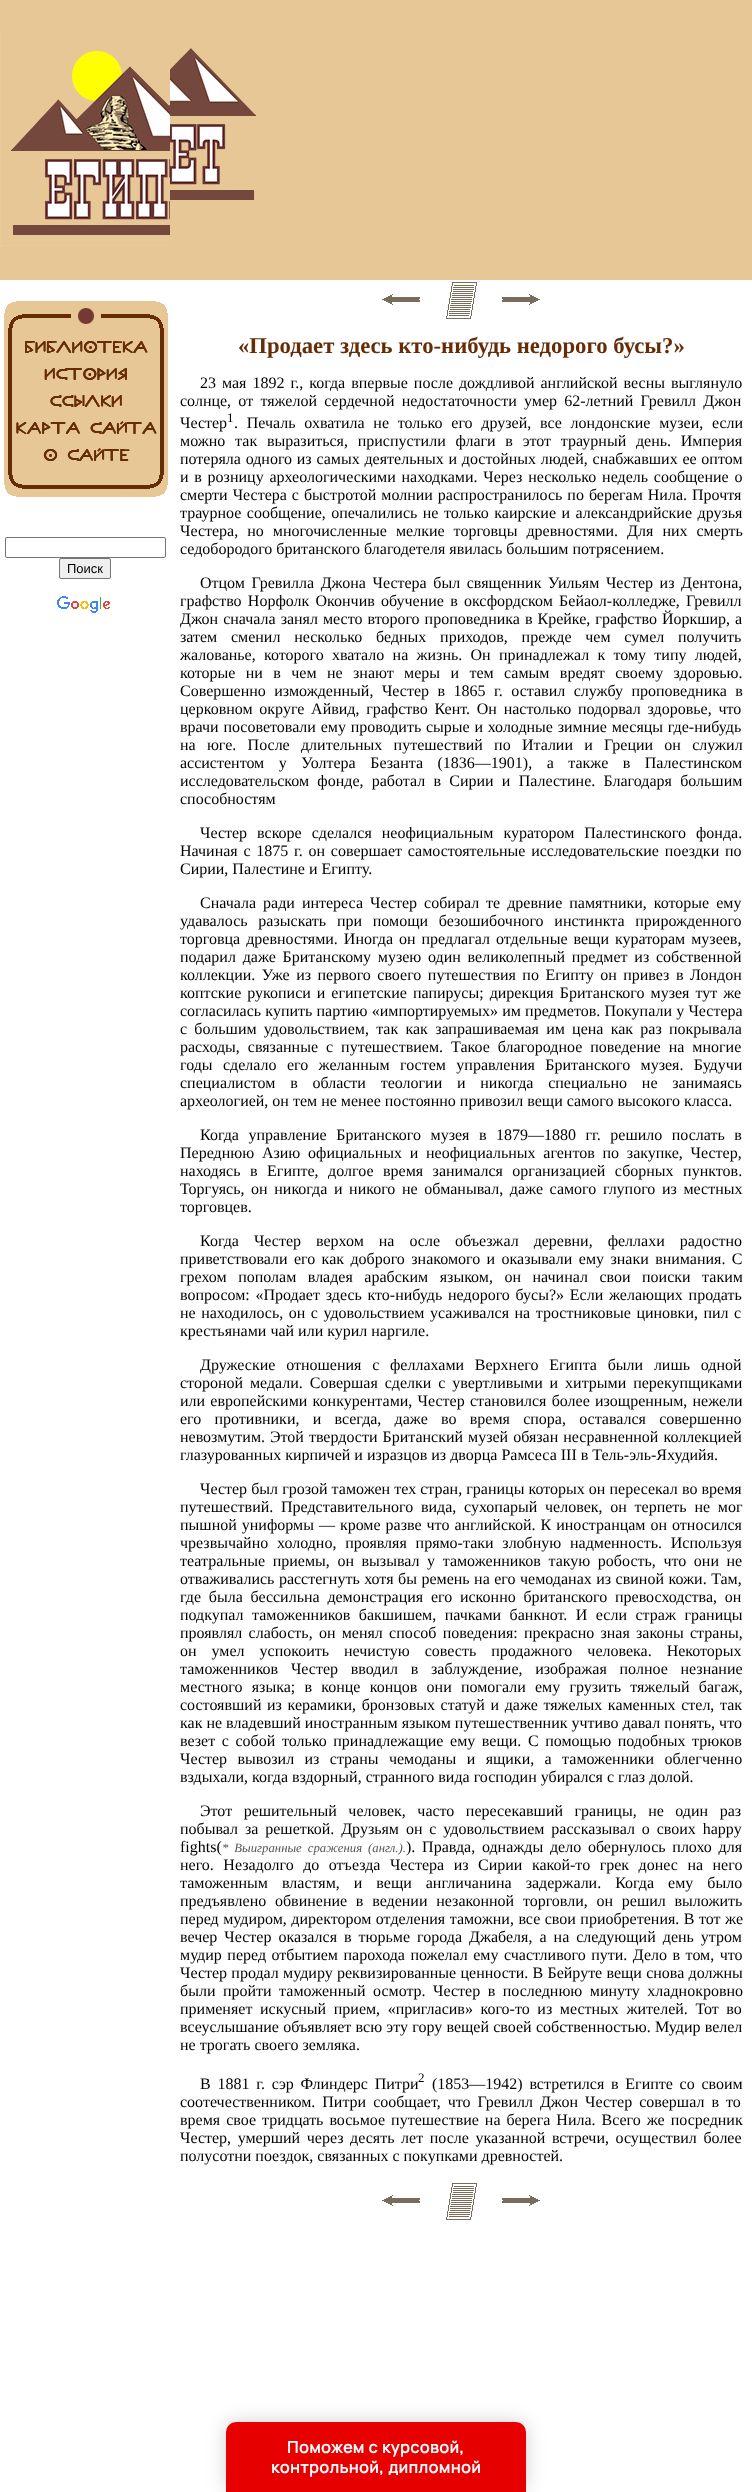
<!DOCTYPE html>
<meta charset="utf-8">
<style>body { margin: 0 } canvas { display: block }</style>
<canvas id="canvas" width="752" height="2492"></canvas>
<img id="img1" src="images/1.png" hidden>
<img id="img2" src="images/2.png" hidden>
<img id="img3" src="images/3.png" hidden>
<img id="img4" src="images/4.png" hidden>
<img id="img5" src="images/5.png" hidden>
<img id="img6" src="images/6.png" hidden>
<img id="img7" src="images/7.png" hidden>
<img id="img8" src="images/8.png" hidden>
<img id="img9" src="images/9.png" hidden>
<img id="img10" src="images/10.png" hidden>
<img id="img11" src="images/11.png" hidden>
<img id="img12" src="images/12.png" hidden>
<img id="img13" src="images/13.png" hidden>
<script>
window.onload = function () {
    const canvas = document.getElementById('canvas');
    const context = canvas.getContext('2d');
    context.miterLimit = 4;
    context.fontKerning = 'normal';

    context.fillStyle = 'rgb(255, 255, 255)';
    context.fillRect(0, 0, 752, 2492);
    context.fillStyle = 'rgb(231, 199, 150)';
    context.fillRect(0, 0, 752, 280);
    context.drawImage(document.getElementById('img1'), 0, 35, 170, 211);
    context.drawImage(document.getElementById('img2'), 170, 48, 88, 152);
    context.drawImage(document.getElementById('img3'), 4, 301, 164, 33);
    context.drawImage(document.getElementById('img4'), 4, 334, 164, 27);
    context.drawImage(document.getElementById('img5'), 4, 361, 164, 27);
    context.drawImage(document.getElementById('img6'), 4, 388, 164, 27);
    context.drawImage(document.getElementById('img7'), 4, 415, 164, 27);
    context.drawImage(document.getElementById('img8'), 4, 442, 164, 27);
    context.drawImage(document.getElementById('img9'), 4, 469, 164, 28);
    context.beginPath();
    context.roundRect(5.5, 537.5, 160, 20, 1.5);
    context.strokeStyle = 'rgb(118, 118, 118)';
    context.stroke();
    context.fillStyle = 'rgb(239, 239, 239)';
    context.beginPath();
    context.roundRect(59.5, 558.5, 51, 20, 1.5);
    context.fill();
    context.stroke();
    context.drawImage(document.getElementById('img10'), 57, 596, 53, 17);
    context.drawImage(document.getElementById('img11'), 382, 294, 38, 11);
    context.drawImage(document.getElementById('img12'), 446, 282, 31, 37);
    context.drawImage(document.getElementById('img13'), 502, 294, 38, 11);
    context.drawImage(document.getElementById('img11'), 382, 2195, 38, 11);
    context.drawImage(document.getElementById('img12'), 446, 2183, 31, 37);
    context.drawImage(document.getElementById('img13'), 502, 2195, 38, 11);
    context.fillStyle = 'rgba(0, 0, 0, 0.18)';
    context.filter = 'blur(9.5px)';
    context.beginPath();
    context.roundRect(226, 2422, 300, 70, 10);
    context.fill();
    context.filter = 'none';
    context.fillStyle = 'rgb(230, 0, 0)';
    context.beginPath();
    context.roundRect(226, 2422, 300, 70, [10, 10, 0, 0]);
    context.fill();
    context.font = '13px Liberation Sans';
    context.fillStyle = 'rgb(0, 0, 0)';
    context.fillText('Поиск', 67, 573);
    context.font = 'bold 22.7px Liberation Serif';
    context.fillStyle = 'rgb(102, 44, 6)';
    context.fillText('«Продает здесь кто-нибудь недорого бусы?»', 238, 353);
    context.wordSpacing = '2px';
    context.font = '16px Liberation Serif';
    context.fillStyle = 'rgb(0, 0, 0)';
    context.fillText('23 мая 1892 г., когда впервые после дождливой английской весны выглянуло', 200, 388);
    context.wordSpacing = '3.25px';
    context.fillText('солнце, от тяжелой сердечной недостаточности умер 62-летний Гревилл Джон', 180, 406);
    context.wordSpacing = '0px';
    context.fillText('Честер', 180, 428);
    context.font = '13px Liberation Serif';
    context.fillText('1', 227, 422);
    context.wordSpacing = '4.75px';
    context.font = '16px Liberation Serif';
    context.fillText('. Печаль охватила не только его друзей, все лондонские музеи, если', 234, 428);
    context.wordSpacing = '5.75px';
    context.fillText('можно так выразиться, приспустили флаги в этот траурный день. Империя', 180, 446);
    context.wordSpacing = '0.75px';
    context.fillText('потеряла одного из самых деятельных и достойных людей, снабжавших ее оптом', 180, 464);
    context.wordSpacing = '1.75px';
    context.fillText('и в розницу археологическими находками. Через несколько недель сообщение о', 180, 482);
    context.wordSpacing = '1px';
    context.fillText('смерти Честера с быстротой молнии распространилось по берегам Нила. Прочтя', 180, 500);
    context.wordSpacing = '1.5px';
    context.fillText('траурное сообщение, опечалились не только каирские и александрийские друзья', 180, 518);
    context.wordSpacing = '5px';
    context.fillText('Честера, но многочисленные мелкие торговцы древностями. Для них смерть', 180, 536);
    context.wordSpacing = '0px';
    context.fillText('седобородого британского благодетеля явилась большим потрясением.', 180, 554);
    context.wordSpacing = '2.6px';
    context.fillText('Отцом Гревилла Джона Честера был священник Уильям Честер из Дентона,', 200, 588);
    context.wordSpacing = '2.25px';
    context.fillText('графство Норфолк Окончив обучение в оксфордском Бейаол-колледже, Гревилл', 180, 606);
    context.wordSpacing = '1px';
    context.fillText('Джон сначала занял место второго проповедника в Крейке, графство Йоркшир, а', 180, 624);
    context.wordSpacing = '9.75px';
    context.fillText('затем сменил несколько бедных приходов, прежде чем сумел получить', 180, 642);
    context.wordSpacing = '4.25px';
    context.fillText('жалованье, которого хватало на жизнь. Он принадлежал к тому типу людей,', 180, 660);
    context.wordSpacing = '6.4px';
    context.fillText('которые ни в чем не знают меры и тем самым вредят своему здоровью.', 180, 678);
    context.wordSpacing = '4.5px';
    context.fillText('Совершенно изможденный, Честер в 1865 г. оставил службу проповедника в', 180, 696);
    context.wordSpacing = '2.75px';
    context.fillText('церковном округе Айвид, графство Кент. Он настолько подорвал здоровье, что', 180, 714);
    context.wordSpacing = '0.75px';
    context.fillText('врачи посоветовали ему проводить сырые и холодные зимние месяцы где-нибудь', 180, 732);
    context.wordSpacing = '7.25px';
    context.fillText('на юге. После длительных путешествий по Италии и Греции он служил', 180, 750);
    context.wordSpacing = '10.5px';
    context.fillText('ассистентом у Уолтера Безанта (1836—1901), а также в Палестинском', 180, 768);
    context.wordSpacing = '4.25px';
    context.fillText('исследовательском фонде, работал в Сирии и Палестине. Благодаря большим', 180, 786);
    context.wordSpacing = '0px';
    context.fillText('способностям', 180, 804);
    context.wordSpacing = '6px';
    context.fillText('Честер вскоре сделался неофициальным куратором Палестинского фонда.', 200, 838);
    context.wordSpacing = '1.75px';
    context.fillText('Начиная с 1875 г. он совершает самостоятельные исследовательские поездки по', 180, 856);
    context.wordSpacing = '0px';
    context.fillText('Сирии, Палестине и Египту.', 180, 874);
    context.wordSpacing = '3px';
    context.fillText('Сначала ради интереса Честер собирал те древние памятники, которые ему', 200, 908);
    context.wordSpacing = '6.75px';
    context.fillText('удавалось разыскать при помощи безошибочного инстинкта прирожденного', 180, 926);
    context.wordSpacing = '2px';
    context.fillText('торговца древностями. Иногда он предлагал отдельные вещи кураторам музеев,', 180, 944);
    context.wordSpacing = '2.75px';
    context.fillText('подарил даже Британскому музею один великолепный предмет из собственной', 180, 962);
    context.wordSpacing = '2.5px';
    context.fillText('коллекции. Уже из первого своего путешествия по Египту он привез в Лондон', 180, 980);
    context.wordSpacing = '2px';
    context.fillText('коптские рукописи и египетские папирусы; дирекция Британского музея тут же', 180, 998);
    context.wordSpacing = '0.25px';
    context.fillText('согласилась купить партию «импортируемых» им предметов. Покупали у Честера', 180, 1016);
    context.wordSpacing = '3.25px';
    context.fillText('с большим удовольствием, так как запрашиваемая им цена как раз покрывала', 180, 1034);
    context.wordSpacing = '4px';
    context.fillText('расходы, связанные с путешествием. Такое благородное поведение на многие', 180, 1052);
    context.wordSpacing = '6.4px';
    context.fillText('годы сделало его желанным гостем управления Британского музея. Будучи', 180, 1070);
    context.wordSpacing = '10.75px';
    context.fillText('специалистом в области теологии и никогда специально не занимаясь', 180, 1088);
    context.wordSpacing = '0px';
    context.fillText('археологией, он тем не менее постоянно привозил вещи самого высокого класса.', 180, 1106);
    context.wordSpacing = '5.5px';
    context.fillText('Когда управление Британского музея в 1879—1880 гг. решило послать в', 200, 1140);
    context.wordSpacing = '3.75px';
    context.fillText('Переднюю Азию официальных и неофициальных агентов по закупке, Честер,', 180, 1158);
    context.wordSpacing = '5.5px';
    context.fillText('находясь в Египте, долгое время занимался организацией сборных пунктов.', 180, 1176);
    context.wordSpacing = '2.6px';
    context.fillText('Торгуясь, он никогда и никого не обманывал, даже самого глупого из местных', 180, 1194);
    context.wordSpacing = '0px';
    context.fillText('торговцев.', 180, 1212);
    context.wordSpacing = '11px';
    context.fillText('Когда Честер верхом на осле объезжал деревни, феллахи радостно', 200, 1246);
    context.wordSpacing = '2.4px';
    context.fillText('приветствовали его как доброго знакомого и оказывали ему знаки внимания. С', 180, 1264);
    context.wordSpacing = '7.5px';
    context.fillText('грехом пополам владея арабским языком, он начинал свои поиски таким', 180, 1282);
    context.wordSpacing = '1.75px';
    context.fillText('вопросом: «Продает здесь кто-нибудь недорого бусы?» Если желающих продать', 180, 1300);
    context.wordSpacing = '1.5px';
    context.fillText('не находилось, он с удовольствием усаживался на тростниковые циновки, пил с', 180, 1318);
    context.wordSpacing = '0px';
    context.fillText('крестьянами чай или курил наргиле.', 180, 1336);
    context.wordSpacing = '6.75px';
    context.fillText('Дружеские отношения с феллахами Верхнего Египта были лишь одной', 200, 1370);
    context.wordSpacing = '2.9px';
    context.fillText('стороной медали. Совершая сделки с увертливыми и хитрыми перекупщиками', 180, 1388);
    context.wordSpacing = '1.25px';
    context.fillText('или европейскими конкурентами, Честер становился более изощренным, нежели', 180, 1406);
    context.wordSpacing = '9.25px';
    context.fillText('его противники, и всегда, даже во время спора, оставался совершенно', 180, 1424);
    context.wordSpacing = '1px';
    context.fillText('невозмутим. Этой твердости Британский музей обязан несравненной коллекцией', 180, 1442);
    context.wordSpacing = '0px';
    context.fillText('глазурованных кирпичей и изразцов из дворца Рамсеса III в Тель-эль-Яхудийя.', 180, 1460);
    context.wordSpacing = '0.1px';
    context.fillText('Честер был грозой таможен тех стран, границы которых он пересекал во время', 200, 1494);
    context.wordSpacing = '3.75px';
    context.fillText('путешествий. Представительного вида, сухопарый человек, он терпеть не мог', 180, 1512);
    context.wordSpacing = '1px';
    context.fillText('пышной униформы — кроме разве что английской. К иностранцам он относился', 180, 1530);
    context.wordSpacing = '4.75px';
    context.fillText('чрезвычайно холодно, проявляя прямо-таки злобную надменность. Используя', 180, 1548);
    context.wordSpacing = '3.6px';
    context.fillText('театральные приемы, он вызывал у таможенников такую робость, что они не', 180, 1566);
    context.wordSpacing = '0.5px';
    context.fillText('отваживались расстегнуть хотя бы ремень на его чемоданах из свиной кожи. Там,', 180, 1584);
    context.wordSpacing = '3.75px';
    context.fillText('где была бессильна демонстрация его исконно британского превосходства, он', 180, 1602);
    context.wordSpacing = '4.5px';
    context.fillText('подкупал таможенников бакшишем, пачками банкнот. И если страж границы', 180, 1620);
    context.wordSpacing = '2.25px';
    context.fillText('проявлял слабость, он менял способ поведения: прекрасно зная законы страны,', 180, 1638);
    context.wordSpacing = '11px';
    context.fillText('он умел успокоить нечистую совесть продажного человека. Некоторых', 180, 1656);
    context.wordSpacing = '8.75px';
    context.fillText('таможенников Честер вводил в заблуждение, изображая полное незнание', 180, 1674);
    context.wordSpacing = '5.25px';
    context.fillText('местного языка; в конце концов они помогали ему грузить тяжелый багаж,', 180, 1692);
    context.wordSpacing = '1.6px';
    context.fillText('состоявший из керамики, бронзовых статуй и даже тяжелых каменных стел, так', 180, 1710);
    context.wordSpacing = '0px';
    context.fillText('как не владевший иностранным языком путешественник учтиво давал понять, что', 180, 1728);
    context.wordSpacing = '2.6px';
    context.fillText('везет с собой только принадлежащие ему вещи. С помощью подобных трюков', 180, 1746);
    context.wordSpacing = '6.4px';
    context.fillText('Честер вывозил из страны чемоданы и ящики, а таможенники облегченно', 180, 1764);
    context.wordSpacing = '0px';
    context.fillText('вздыхали, когда вздорный, странного вида господин убирался с глаз долой.', 180, 1782);
    context.wordSpacing = '7.5px';
    context.fillText('Этот решительный человек, часто пересекавший границы, не один раз', 200, 1816);
    context.wordSpacing = '2.9px';
    context.fillText('побывал за решеткой. Друзьям он с удовольствием рассказывал о своих happy', 180, 1834);
    context.wordSpacing = '0px';
    context.fillText('fights(', 180, 1852);
    context.wordSpacing = '2.75px';
    context.font = 'italic 12.75px Liberation Serif';
    context.fillStyle = 'rgb(85, 85, 85)';
    context.fillText('* Выигранные сражения (англ.).', 222, 1852);
    context.font = '16px Liberation Serif';
    context.fillStyle = 'rgb(0, 0, 0)';
    context.fillText('). Правда, однажды дело обернулось плохо для', 406, 1852);
    context.wordSpacing = '5.5px';
    context.fillText('него. Незадолго до отъезда Честера из Сирии какой-то грек донес на него', 180, 1870);
    context.wordSpacing = '10px';
    context.fillText('таможенным властям, и вещи англичанина задержали. Когда ему было', 180, 1888);
    context.wordSpacing = '4.75px';
    context.fillText('предъявлено обвинение в ведении незаконной торговли, он решил выложить', 180, 1906);
    context.wordSpacing = '0.5px';
    context.fillText('перед мудиром, директором отделения таможни, все свои приобретения. В тот же', 180, 1924);
    context.wordSpacing = '3px';
    context.fillText('вечер Честер оказался в тюрьме города Джабеля, а на следующий день утром', 180, 1942);
    context.wordSpacing = '1.5px';
    context.fillText('мудир перед отбытием парохода пожелал ему счастливого пути. Дело в том, что', 180, 1960);
    context.wordSpacing = '0.25px';
    context.fillText('Честер продал мудиру реквизированные ценности. В Бейруте вещи снова должны', 180, 1978);
    context.wordSpacing = '3.5px';
    context.fillText('были пройти таможенный осмотр. Честер в последнюю минуту хладнокровно', 180, 1996);
    context.wordSpacing = '3.6px';
    context.fillText('применяет искусный прием, «пригласив» кого-то из местных жителей. Тот во', 180, 2014);
    context.wordSpacing = '0.25px';
    context.fillText('всеуслышание объявляет всю эту гору вещей своей собственностью. Мудир велел', 180, 2032);
    context.wordSpacing = '0px';
    context.fillText('не трогать своего земляка.', 180, 2050);
    context.wordSpacing = '2.75px';
    context.fillText('В 1881 г. сэр Флиндерс Питри', 200, 2089);
    context.wordSpacing = '0px';
    context.font = '13px Liberation Serif';
    context.fillText('2', 418, 2082);
    context.wordSpacing = '2.75px';
    context.font = '16px Liberation Serif';
    context.fillText('(1853—1942) встретился в Египте со своим', 432, 2089);
    context.wordSpacing = '3px';
    context.fillText('соотечественником. Питри сообщает, что Гревилл Джон Честер совершал в то', 180, 2107);
    context.wordSpacing = '2px';
    context.fillText('время свое тридцать восьмое путешествие на берега Нила. Всего же посредник', 180, 2125);
    context.wordSpacing = '2.6px';
    context.fillText('Честер, умерший через десять лет после указанной встречи, осуществил более', 180, 2143);
    context.wordSpacing = '0px';
    context.fillText('полусотни поездок, связанных с покупками древностей.', 180, 2161);
    context.letterSpacing = '0.65px';
    context.font = 'bold 16px Manrope';
    context.fillStyle = 'rgb(255, 255, 255)';
    context.fillText('Поможем с курсовой,', 287, 2453);
    context.fillText('контрольной, дипломной', 271, 2473);
};
</script>
